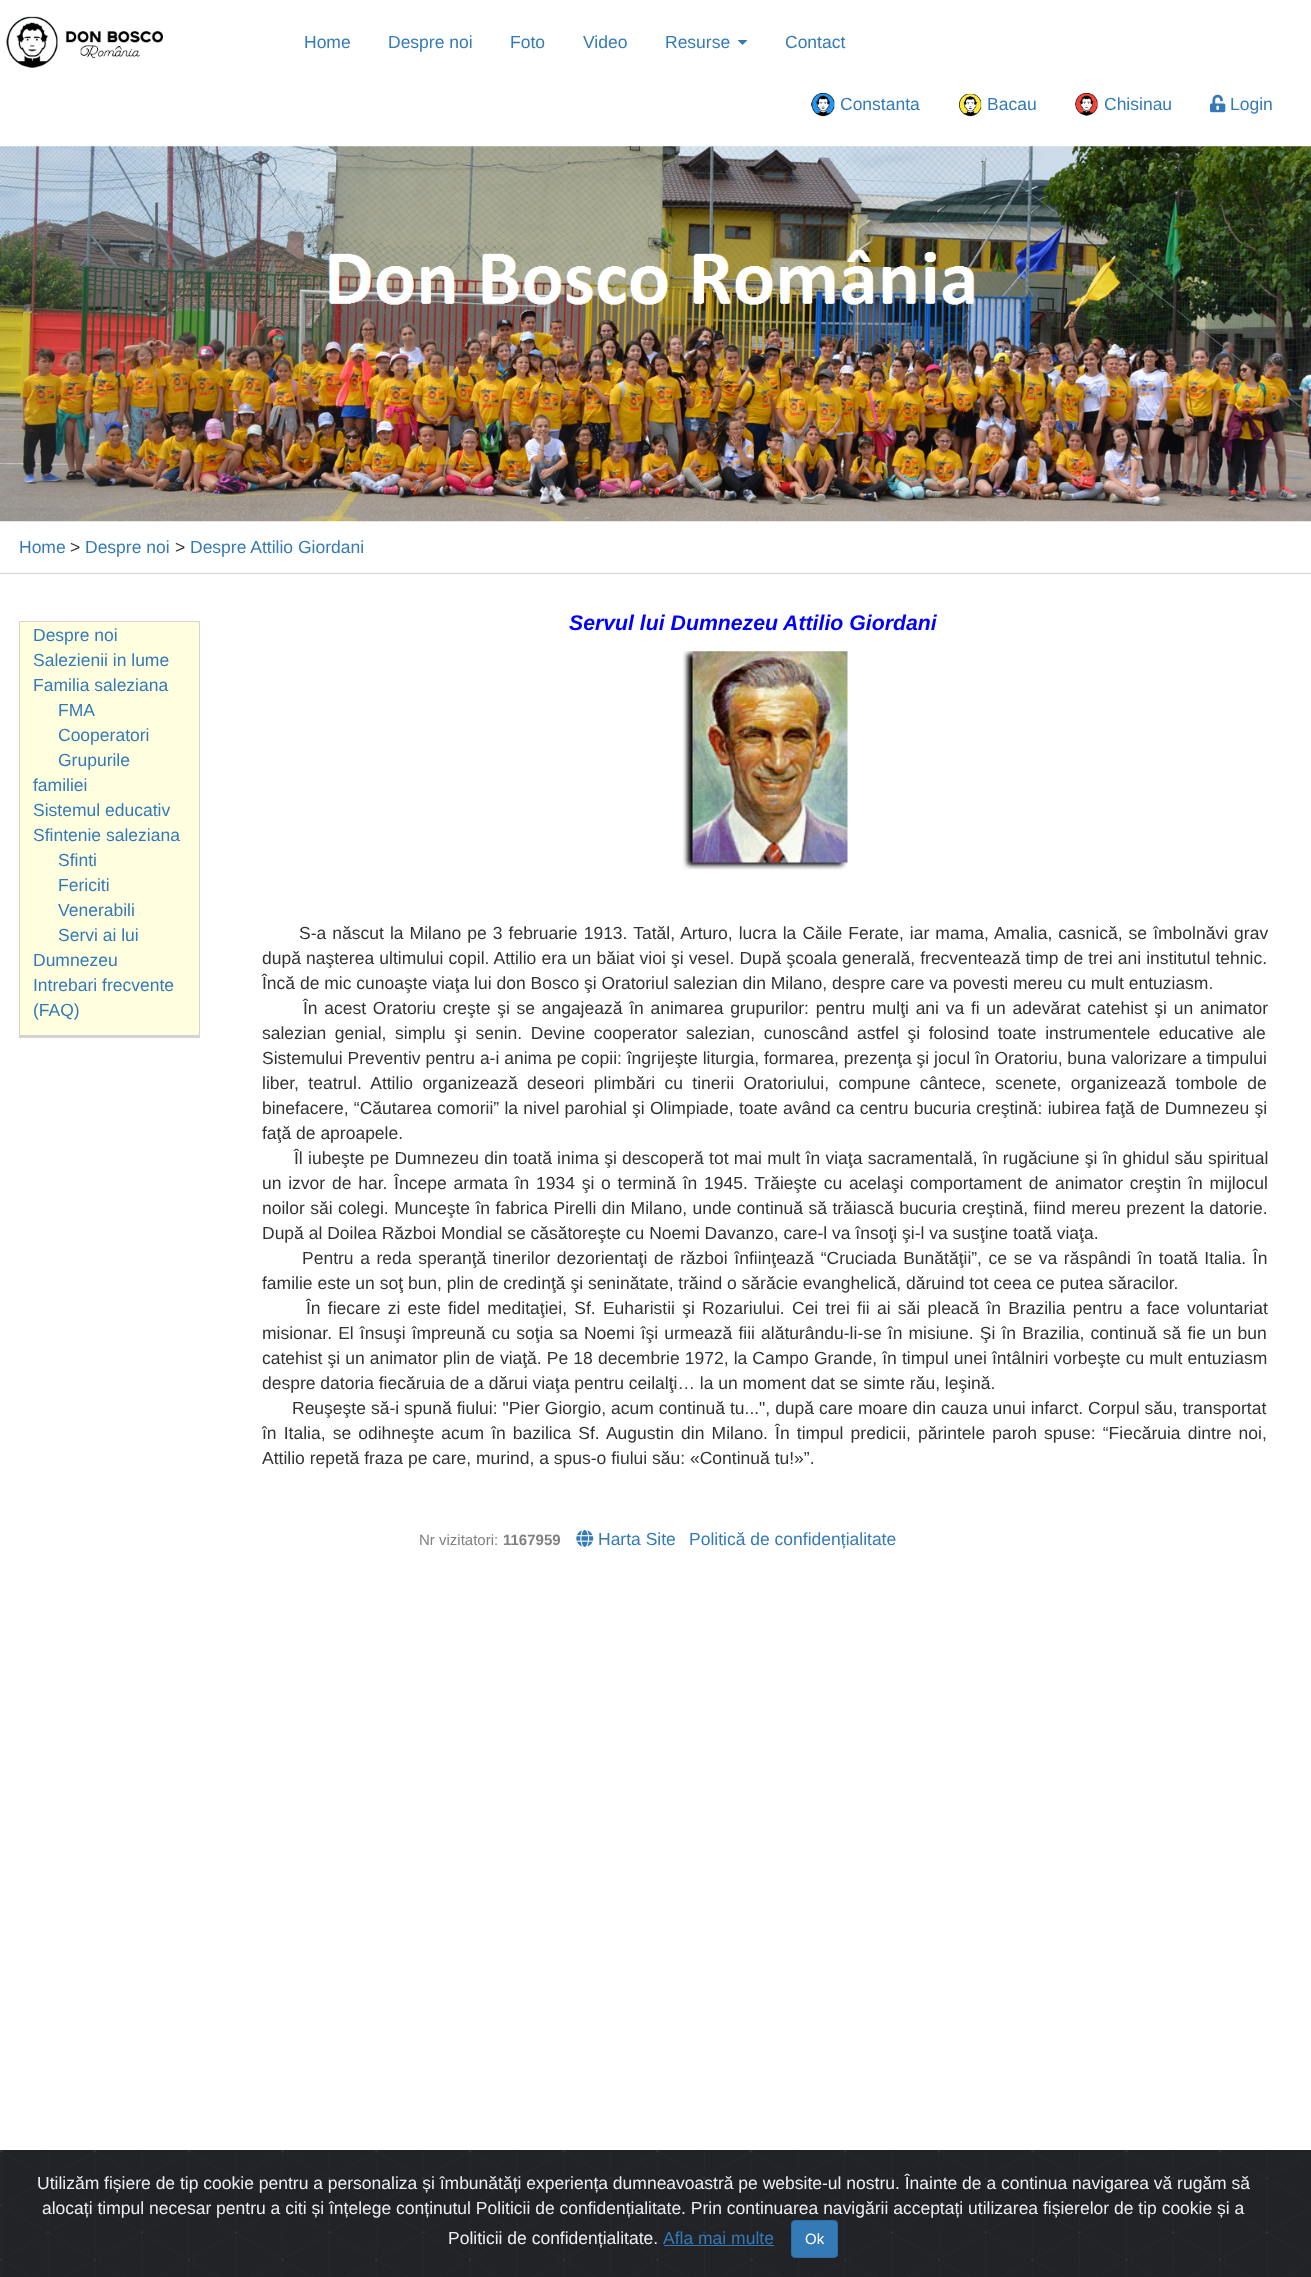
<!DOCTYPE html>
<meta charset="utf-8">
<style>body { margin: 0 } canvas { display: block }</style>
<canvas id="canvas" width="1311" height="2277"></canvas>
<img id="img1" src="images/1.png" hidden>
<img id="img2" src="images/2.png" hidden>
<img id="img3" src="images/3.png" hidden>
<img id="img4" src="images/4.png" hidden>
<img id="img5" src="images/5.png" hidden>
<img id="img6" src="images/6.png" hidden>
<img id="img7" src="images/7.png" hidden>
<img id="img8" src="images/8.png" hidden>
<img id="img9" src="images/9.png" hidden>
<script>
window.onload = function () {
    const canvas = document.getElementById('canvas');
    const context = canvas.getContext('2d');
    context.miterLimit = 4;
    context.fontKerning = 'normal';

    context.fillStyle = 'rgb(255, 255, 255)';
    context.fillRect(0, 0, 1311, 2277);
    context.drawImage(document.getElementById('img1'), 6, 16, 157, 52);
    context.fillStyle = 'rgb(51, 122, 183)';
    context.beginPath();
    context.moveTo(737.5, 40);
    context.lineTo(747.5, 40);
    context.lineTo(742.5, 45);
    context.closePath();
    context.fill();
    context.drawImage(document.getElementById('img2'), 811, 93, 24, 24);
    context.drawImage(document.getElementById('img3'), 958, 93, 24, 24);
    context.drawImage(document.getElementById('img4'), 1075, 93, 23, 23);
    context.drawImage(document.getElementById('img5'), 1210, 94, 16, 19);
    context.drawImage(document.getElementById('img6'), 0, 146, 1311, 376);
    context.fillStyle = 'rgb(211, 211, 211)';
    context.fillRect(0, 573, 1311, 1);
    context.filter = 'blur(0.5px)';
    context.beginPath();
    context.rect(19, 623, 181, 415);
    context.fill();
    context.filter = 'none';
    context.fillStyle = 'rgb(255, 255, 224)';
    context.beginPath();
    context.rect(19.5, 621.5, 180, 414);
    context.fill();
    context.strokeStyle = 'rgb(211, 211, 211)';
    context.stroke();
    context.drawImage(document.getElementById('img7'), 682, 651, 166, 219);
    context.drawImage(document.getElementById('img8'), 576, 1530, 18, 17);
    context.fillStyle = 'rgb(33, 35, 39)';
    context.fillRect(1308, 2150, 3, 127);
    context.drawImage(document.getElementById('img9'), 0, 2150, 1308, 127);
    context.fillStyle = 'rgb(51, 122, 183)';
    context.fillRect(664, 2245, 110, 1);
    context.beginPath();
    context.roundRect(791.5, 2220.5, 46, 37, 3.5);
    context.fill();
    context.strokeStyle = 'rgb(46, 109, 164)';
    context.stroke();
    context.font = '17.5px Liberation Sans';
    context.fillText('Home', 304, 48);
    context.fillText('Despre noi', 388, 48);
    context.fillText('Foto', 510, 48);
    context.fillText('Video', 583, 48);
    context.fillText('Resurse', 665, 48);
    context.fillText('Contact', 785, 48);
    context.fillText('Constanta', 840, 110);
    context.fillText('Bacau', 987, 110);
    context.fillText('Chisinau', 1104, 110);
    context.fillText('Login', 1230, 110);
    context.fillText('Home', 19, 553);
    context.fillStyle = 'rgb(51, 51, 51)';
    context.fillText('>', 70, 553);
    context.fillStyle = 'rgb(51, 122, 183)';
    context.fillText('Despre noi', 85, 553);
    context.fillStyle = 'rgb(51, 51, 51)';
    context.fillText('>', 175, 553);
    context.fillStyle = 'rgb(51, 122, 183)';
    context.fillText('Despre Attilio Giordani', 190, 553);
    context.fillText('Despre noi', 33, 641);
    context.fillText('Salezienii in lume', 33, 666);
    context.fillText('Familia saleziana', 33, 691);
    context.fillText('FMA', 58, 716);
    context.fillText('Cooperatori', 58, 741);
    context.fillText('Grupurile', 58, 766);
    context.fillText('familiei', 33, 791);
    context.fillText('Sistemul educativ', 33, 816);
    context.fillText('Sfintenie saleziana', 33, 841);
    context.fillText('Sfinti', 58, 866);
    context.fillText('Fericiti', 58, 891);
    context.fillText('Venerabili', 58, 916);
    context.fillText('Servi ai lui', 58, 941);
    context.fillText('Dumnezeu', 33, 966);
    context.fillText('Intrebari frecvente', 33, 991);
    context.fillText('(FAQ)', 33, 1016);
    context.font = 'italic bold 21.25px Liberation Sans';
    context.fillStyle = 'rgb(0, 0, 255)';
    context.fillText('Servul lui Dumnezeu Attilio Giordani', 569, 630);
    context.wordSpacing = '1.2px';
    context.font = '17.5px Liberation Sans';
    context.fillStyle = 'rgb(51, 51, 51)';
    context.fillText('S-a născut la Milano pe 3 februarie 1913. Tatăl, Arturo, lucra la Căile Ferate, iar mama, Amalia, casnică, se îmbolnăvi grav', 299, 939);
    context.wordSpacing = '0.25px';
    context.fillText('după naşterea ultimului copil. Attilio era un băiat vioi şi vesel. După şcoala generală, frecventează timp de trei ani institutul tehnic.', 262, 964);
    context.wordSpacing = '0px';
    context.fillText('Încă de mic cunoaşte viaţa lui don Bosco şi Oratoriul salezian din Milano, despre care va povesti mereu cu mult entuziasm.', 262, 989);
    context.wordSpacing = '1.85px';
    context.fillText('În acest Oratoriu creşte şi se angajează în animarea grupurilor: pentru mulţi ani va fi un adevărat catehist şi un animator', 303, 1014);
    context.wordSpacing = '3.75px';
    context.fillText('salezian genial, simplu şi senin. Devine cooperator salezian, cunoscând astfel şi folosind toate instrumentele educative ale', 262, 1039);
    context.wordSpacing = '0px';
    context.fillText('Sistemului Preventiv pentru a-i anima pe copii: îngrijeşte liturgia, formarea, prezenţa şi jocul în Oratoriu, buna valorizare a timpului', 262, 1064);
    context.wordSpacing = '4.5px';
    context.fillText('liber, teatrul. Attilio organizează deseori plimbări cu tinerii Oratoriului, compune cântece, scenete, organizează tombole de', 262, 1089);
    context.wordSpacing = '0.4px';
    context.fillText('binefacere, “Căutarea comorii” la nivel parohial şi Olimpiade, toate având ca centru bucuria creştină: iubirea faţă de Dumnezeu şi', 262, 1114);
    context.wordSpacing = '0px';
    context.fillText('faţă de aproapele.', 262, 1139);
    context.wordSpacing = '0.4px';
    context.fillText('Îl iubeşte pe Dumnezeu din toată inima şi descoperă tot mai mult în viaţa sacramentală, în rugăciune şi în ghidul său spiritual', 294, 1164);
    context.wordSpacing = '1.9px';
    context.fillText('un izvor de har. Începe armata în 1934 şi o termină în 1945. Trăieşte cu acelaşi comportament de animator creştin în mijlocul', 262, 1189);
    context.wordSpacing = '0.6px';
    context.fillText('noilor săi colegi. Munceşte în fabrica Pirelli din Milano, unde continuă să trăiască bucuria creştină, fiind mereu prezent la datorie.', 262, 1214);
    context.wordSpacing = '0px';
    context.fillText('După al Doilea Război Mondial se căsătoreşte cu Noemi Davanzo, care-l va însoţi şi-l va susţine toată viaţa.', 262, 1239);
    context.wordSpacing = '1.75px';
    context.fillText('Pentru a reda speranţă tinerilor dezorientaţi de război înfiinţează “Cruciada Bunătăţii”, ce se va răspândi în toată Italia. În', 302, 1264);
    context.wordSpacing = '0px';
    context.fillText('familie este un soţ bun, plin de credinţă şi seninătate, trăind o sărăcie evanghelică, dăruind tot ceea ce putea săracilor.', 262, 1289);
    context.wordSpacing = '2.4px';
    context.fillText('În fiecare zi este fidel meditaţiei, Sf. Euharistii şi Rozariului. Cei trei fii ai săi pleacă în Brazilia pentru a face voluntariat', 306, 1314);
    context.wordSpacing = '1.25px';
    context.fillText('misionar. El însuşi împreună cu soţia sa Noemi îşi urmează fiii alăturându-li-se în misiune. Şi în Brazilia, continuă să fie un bun', 262, 1339);
    context.wordSpacing = '0.25px';
    context.fillText('catehist şi un animator plin de viaţă. Pe 18 decembrie 1972, la Campo Grande, în timpul unei întâlniri vorbeşte cu mult entuziasm', 262, 1364);
    context.wordSpacing = '0px';
    context.fillText('despre datoria fiecăruia de a dărui viaţa pentru ceilalţi… la un moment dat se simte rău, leşină.', 262, 1389);
    context.wordSpacing = '0.1px';
    context.fillText('Reuşeşte să-i spună fiului: "Pier Giorgio, acum continuă tu...", după care moare din cauza unui infarct. Corpul său, transportat', 292, 1414);
    context.wordSpacing = '2.25px';
    context.fillText('în Italia, se odihneşte acum în bazilica Sf. Augustin din Milano. În timpul predicii, părintele paroh spuse: “Fiecăruia dintre noi,', 262, 1439);
    context.wordSpacing = '0px';
    context.fillText('Attilio repetă fraza pe care, murind, a spus-o fiului său: «Continuă tu!»”.', 262, 1464);
    context.font = '15px Liberation Sans';
    context.fillStyle = 'rgb(128, 128, 128)';
    context.fillText('Nr vizitatori:', 419, 1545);
    context.font = 'bold 15px Liberation Sans';
    context.fillText('1167959', 503, 1545);
    context.font = '17.5px Liberation Sans';
    context.fillStyle = 'rgb(51, 122, 183)';
    context.fillText('Harta Site', 598, 1545);
    context.fillText('Politică de confidențialitate', 689, 1545);
    context.fillStyle = 'rgb(236, 240, 241)';
    context.fillText('Utilizăm fișiere de tip cookie pentru a personaliza și îmbunătăți experiența dumneavoastră pe website-ul nostru. Înainte de a continua navigarea vă rugăm să', 37, 2189);
    context.fillText('alocați timpul necesar pentru a citi și înțelege conținutul Politicii de confidențialitate. Prin continuarea navigării acceptați utilizarea fișierelor de tip cookie și a', 42, 2214);
    context.fillText('Politicii de confidențialitate.', 448, 2244);
    context.fillStyle = 'rgb(51, 122, 183)';
    context.fillText('Afla mai multe', 663, 2244);
    context.font = '15px Liberation Sans';
    context.fillStyle = 'rgb(255, 255, 255)';
    context.fillText('Ok', 805, 2244);
};
</script>
